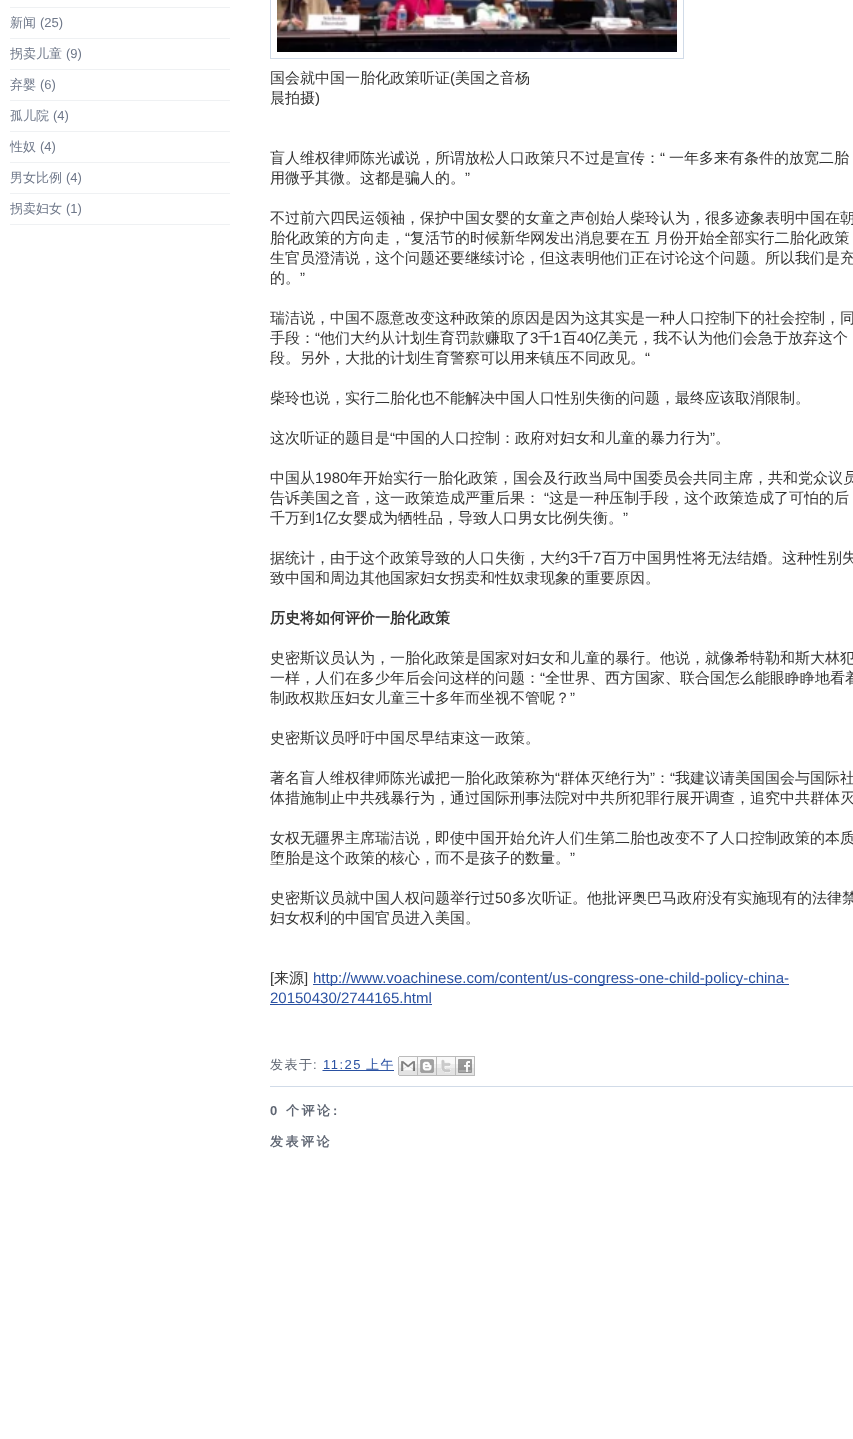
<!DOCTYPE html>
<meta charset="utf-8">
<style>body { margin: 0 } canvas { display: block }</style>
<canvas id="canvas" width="853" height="1439"></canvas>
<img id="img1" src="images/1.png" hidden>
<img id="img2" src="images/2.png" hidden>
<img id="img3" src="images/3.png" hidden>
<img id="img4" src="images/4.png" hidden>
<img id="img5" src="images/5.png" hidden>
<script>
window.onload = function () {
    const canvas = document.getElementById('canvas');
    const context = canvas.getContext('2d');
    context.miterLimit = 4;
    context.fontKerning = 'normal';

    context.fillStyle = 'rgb(255, 255, 255)';
    context.fillRect(0, 0, 853, 1439);
    context.fillStyle = 'rgb(239, 241, 243)';
    context.fillRect(10, 7, 220, 1);
    context.fillRect(10, 38, 220, 1);
    context.fillRect(10, 69, 220, 1);
    context.fillRect(10, 100, 220, 1);
    context.fillRect(10, 131, 220, 1);
    context.fillRect(10, 162, 220, 1);
    context.fillRect(10, 193, 220, 1);
    context.fillRect(10, 224, 220, 1);
    context.fillStyle = 'rgb(209, 219, 232)';
    context.fillRect(270, 1086, 583, 1);
    context.strokeStyle = 'rgb(209, 219, 232)';
    context.strokeRect(270.5, -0.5, 413, 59);
    context.drawImage(document.getElementById('img1'), 277, 0, 400, 52);
    context.fillStyle = 'rgb(42, 81, 162)';
    context.fillRect(313, 984, 476, 1);
    context.fillRect(270, 1004, 162, 1);
    context.beginPath();
    context.moveTo(322.5, 1070.5);
    context.lineTo(394.5, 1070.5);
    context.strokeStyle = 'rgb(42, 81, 162)';
    context.setLineDash([1, 1]);
    context.stroke();
    context.fillRect(323, 1070, 71, 1);
    context.drawImage(document.getElementById('img2'), 398, 1056, 20, 20);
    context.drawImage(document.getElementById('img3'), 418, 1056, 19, 20);
    context.drawImage(document.getElementById('img4'), 437, 1056, 19, 20);
    context.drawImage(document.getElementById('img5'), 456, 1056, 19, 20);
    context.font = '500 13px WenQuanYi Zen Hei';
    context.fillStyle = 'rgb(110, 119, 137)';
    context.fillText('新闻', 10, 27);
    context.font = '13px Liberation Sans';
    context.fillText('(25)', 40, 27);
    context.font = '500 13px WenQuanYi Zen Hei';
    context.fillText('拐卖儿童', 10, 58);
    context.font = '13px Liberation Sans';
    context.fillText('(9)', 66, 58);
    context.font = '500 13px WenQuanYi Zen Hei';
    context.fillText('弃婴', 10, 89);
    context.font = '13px Liberation Sans';
    context.fillText('(6)', 40, 89);
    context.font = '500 13px WenQuanYi Zen Hei';
    context.fillText('孤儿院', 10, 120);
    context.font = '13px Liberation Sans';
    context.fillText('(4)', 53, 120);
    context.font = '500 13px WenQuanYi Zen Hei';
    context.fillText('性奴', 10, 151);
    context.font = '13px Liberation Sans';
    context.fillText('(4)', 40, 151);
    context.font = '500 13px WenQuanYi Zen Hei';
    context.fillText('男女比例', 10, 182);
    context.font = '13px Liberation Sans';
    context.fillText('(4)', 66, 182);
    context.font = '500 13px WenQuanYi Zen Hei';
    context.fillText('拐卖妇女', 10, 213);
    context.font = '13px Liberation Sans';
    context.fillText('(1)', 66, 213);
    context.font = '500 15px WenQuanYi Zen Hei';
    context.fillStyle = 'rgb(51, 51, 51)';
    context.fillText('国会就中国一胎化政策听证', 270, 83);
    context.font = '15px Liberation Sans';
    context.fillText('(', 450, 83);
    context.font = '500 15px WenQuanYi Zen Hei';
    context.fillText('美国之音杨', 455, 83);
    context.fillText('晨拍摄', 270, 103);
    context.font = '15px Liberation Sans';
    context.fillText(')', 315, 103);
    context.font = '500 15px WenQuanYi Zen Hei';
    context.fillText('盲人维权律师陈光诚说，所谓放松人口政策只不过是宣传：', 270, 163);
    context.font = '15px Liberation Sans';
    context.fillText('“', 660, 163);
    context.font = '500 15px WenQuanYi Zen Hei';
    context.fillText('一年多来有条件的放宽二胎', 669, 163);
    context.fillText('用微乎其微。这都是骗人的。', 270, 183);
    context.font = '15px Liberation Sans';
    context.fillText('”', 465, 183);
    context.font = '500 15px WenQuanYi Zen Hei';
    context.fillText('不过前六四民运领袖，保护中国女婴的女童之声创始人柴玲认为，很多迹象表明中国在朝', 270, 223);
    context.fillText('胎化政策的方向走，', 270, 243);
    context.font = '15px Liberation Sans';
    context.fillText('“', 405, 243);
    context.font = '500 15px WenQuanYi Zen Hei';
    context.fillText('复活节的时候新华网发出消息要在五 月份开始全部实行二胎化政策', 410, 243);
    context.fillText('生官员澄清说，这个问题还要继续讨论，但这表明他们正在讨论这个问题。所以我们是充', 270, 263);
    context.fillText('的。', 270, 283);
    context.font = '15px Liberation Sans';
    context.fillText('”', 300, 283);
    context.font = '500 15px WenQuanYi Zen Hei';
    context.fillText('瑞洁说，中国不愿意改变这种政策的原因是因为这其实是一种人口控制下的社会控制，同', 270, 323);
    context.fillText('手段：', 270, 343);
    context.font = '15px Liberation Sans';
    context.fillText('“', 315, 343);
    context.font = '500 15px WenQuanYi Zen Hei';
    context.fillText('他们大约从计划生育罚款赚取了', 320, 343);
    context.font = '15px Liberation Sans';
    context.fillText('3', 530, 343);
    context.font = '500 15px WenQuanYi Zen Hei';
    context.fillText('千', 538, 343);
    context.font = '15px Liberation Sans';
    context.fillText('1', 553, 343);
    context.font = '500 15px WenQuanYi Zen Hei';
    context.fillText('百', 562, 343);
    context.font = '15px Liberation Sans';
    context.fillText('40', 577, 343);
    context.font = '500 15px WenQuanYi Zen Hei';
    context.fillText('亿美元，我不认为他们会急于放弃这个', 593, 343);
    context.fillText('段。另外，大批的计划生育警察可以用来镇压不同政见。', 270, 363);
    context.font = '15px Liberation Sans';
    context.fillText('“', 645, 363);
    context.font = '500 15px WenQuanYi Zen Hei';
    context.fillText('柴玲也说，实行二胎化也不能解决中国人口性别失衡的问题，最终应该取消限制。', 270, 403);
    context.fillText('这次听证的题目是', 270, 443);
    context.font = '15px Liberation Sans';
    context.fillText('“', 390, 443);
    context.font = '500 15px WenQuanYi Zen Hei';
    context.fillText('中国的人口控制：政府对妇女和儿童的暴力行为', 395, 443);
    context.font = '15px Liberation Sans';
    context.fillText('”', 710, 443);
    context.font = '500 15px WenQuanYi Zen Hei';
    context.fillText('。', 715, 443);
    context.fillText('中国从', 270, 483);
    context.font = '15px Liberation Sans';
    context.fillText('1980', 315, 483);
    context.font = '500 15px WenQuanYi Zen Hei';
    context.fillText('年开始实行一胎化政策，国会及行政当局中国委员会共同主席，共和党众议员', 348, 483);
    context.fillText('告诉美国之音，这一政策造成严重后果：', 270, 503);
    context.font = '15px Liberation Sans';
    context.fillText('“', 544, 503);
    context.font = '500 15px WenQuanYi Zen Hei';
    context.fillText('这是一种压制手段，这个政策造成了可怕的后', 549, 503);
    context.fillText('千万到', 270, 523);
    context.font = '15px Liberation Sans';
    context.fillText('1', 315, 523);
    context.font = '500 15px WenQuanYi Zen Hei';
    context.fillText('亿女婴成为牺牲品，导致人口男女比例失衡。', 323, 523);
    context.font = '15px Liberation Sans';
    context.fillText('”', 623, 523);
    context.font = '500 15px WenQuanYi Zen Hei';
    context.fillText('据统计，由于这个政策导致的人口失衡，大约', 270, 563);
    context.font = '15px Liberation Sans';
    context.fillText('3', 570, 563);
    context.font = '500 15px WenQuanYi Zen Hei';
    context.fillText('千', 578, 563);
    context.font = '15px Liberation Sans';
    context.fillText('7', 593, 563);
    context.font = '500 15px WenQuanYi Zen Hei';
    context.fillText('百万中国男性将无法结婚。这种性别失', 602, 563);
    context.fillText('致中国和周边其他国家妇女拐卖和性奴隶现象的重要原因。', 270, 583);
    context.font = 'bold 15px WenQuanYi Zen Hei';
    context.fillText('历史将如何评价一胎化政策', 270, 623);
    context.font = '500 15px WenQuanYi Zen Hei';
    context.fillText('史密斯议员认为，一胎化政策是国家对妇女和儿童的暴行。他说，就像希特勒和斯大林犯', 270, 663);
    context.fillText('一样，人们在多少年后会问这样的问题：', 270, 683);
    context.font = '15px Liberation Sans';
    context.fillText('“', 540, 683);
    context.font = '500 15px WenQuanYi Zen Hei';
    context.fillText('全世界、西方国家、联合国怎么能眼睁睁地看着', 545, 683);
    context.fillText('制政权欺压妇女儿童三十多年而坐视不管呢？', 270, 703);
    context.font = '15px Liberation Sans';
    context.fillText('”', 570, 703);
    context.font = '500 15px WenQuanYi Zen Hei';
    context.fillText('史密斯议员呼吁中国尽早结束这一政策。', 270, 743);
    context.fillText('著名盲人维权律师陈光诚把一胎化政策称为', 270, 783);
    context.font = '15px Liberation Sans';
    context.fillText('“', 555, 783);
    context.font = '500 15px WenQuanYi Zen Hei';
    context.fillText('群体灭绝行为', 560, 783);
    context.font = '15px Liberation Sans';
    context.fillText('”', 650, 783);
    context.fillText('“', 670, 783);
    context.font = '500 15px WenQuanYi Zen Hei';
    context.fillText('我建议请美国国会与国际社', 675, 783);
    context.fillText('：', 655, 783);
    context.fillText('体措施制止中共残暴行为，通过国际刑事法院对中共所犯罪行展开调查，追究中共群体灭', 270, 803);
    context.fillText('女权无疆界主席瑞洁说，即使中国开始允许人们生第二胎也改变不了人口控制政策的本质', 270, 843);
    context.fillText('堕胎是这个政策的核心，而不是孩子的数量。', 270, 863);
    context.font = '15px Liberation Sans';
    context.fillText('”', 570, 863);
    context.font = '500 15px WenQuanYi Zen Hei';
    context.fillText('史密斯议员就中国人权问题举行过', 270, 903);
    context.font = '15px Liberation Sans';
    context.fillText('50', 495, 903);
    context.font = '500 15px WenQuanYi Zen Hei';
    context.fillText('多次听证。他批评奥巴马政府没有实施现有的法律禁', 512, 903);
    context.fillText('妇女权利的中国官员进入美国。', 270, 923);
    context.font = '15px Liberation Sans';
    context.fillText('[', 270, 983);
    context.font = '500 15px WenQuanYi Zen Hei';
    context.fillText('来源', 274, 983);
    context.font = '15px Liberation Sans';
    context.fillText(']', 304, 983);
    context.fillStyle = 'rgb(42, 81, 162)';
    context.fillText('http://www.voachinese.com/content/us-congress-one-child-policy-china-', 313, 983);
    context.fillText('20150430/2744165.html', 270, 1003);
    context.letterSpacing = '1.5px';
    context.font = '500 13px WenQuanYi Zen Hei';
    context.fillStyle = 'rgb(94, 101, 114)';
    context.fillText('发表于', 270, 1069);
    context.font = '13px Liberation Sans';
    context.fillText(':', 313, 1069);
    context.fillStyle = 'rgb(42, 81, 162)';
    context.fillText('11:25', 323, 1069);
    context.font = '500 13px WenQuanYi Zen Hei';
    context.fillText('上午', 366, 1069);
    context.letterSpacing = '2.5px';
    context.font = 'bold 13px Liberation Sans';
    context.fillStyle = 'rgb(94, 101, 114)';
    context.fillText('0', 270, 1115);
    context.font = 'bold 13px WenQuanYi Zen Hei';
    context.fillText('个评论', 286, 1115);
    context.font = 'bold 13px Liberation Sans';
    context.fillText(':', 333, 1115);
    context.font = 'bold 13px WenQuanYi Zen Hei';
    context.fillText('发表评论', 270, 1146);
};
</script>
